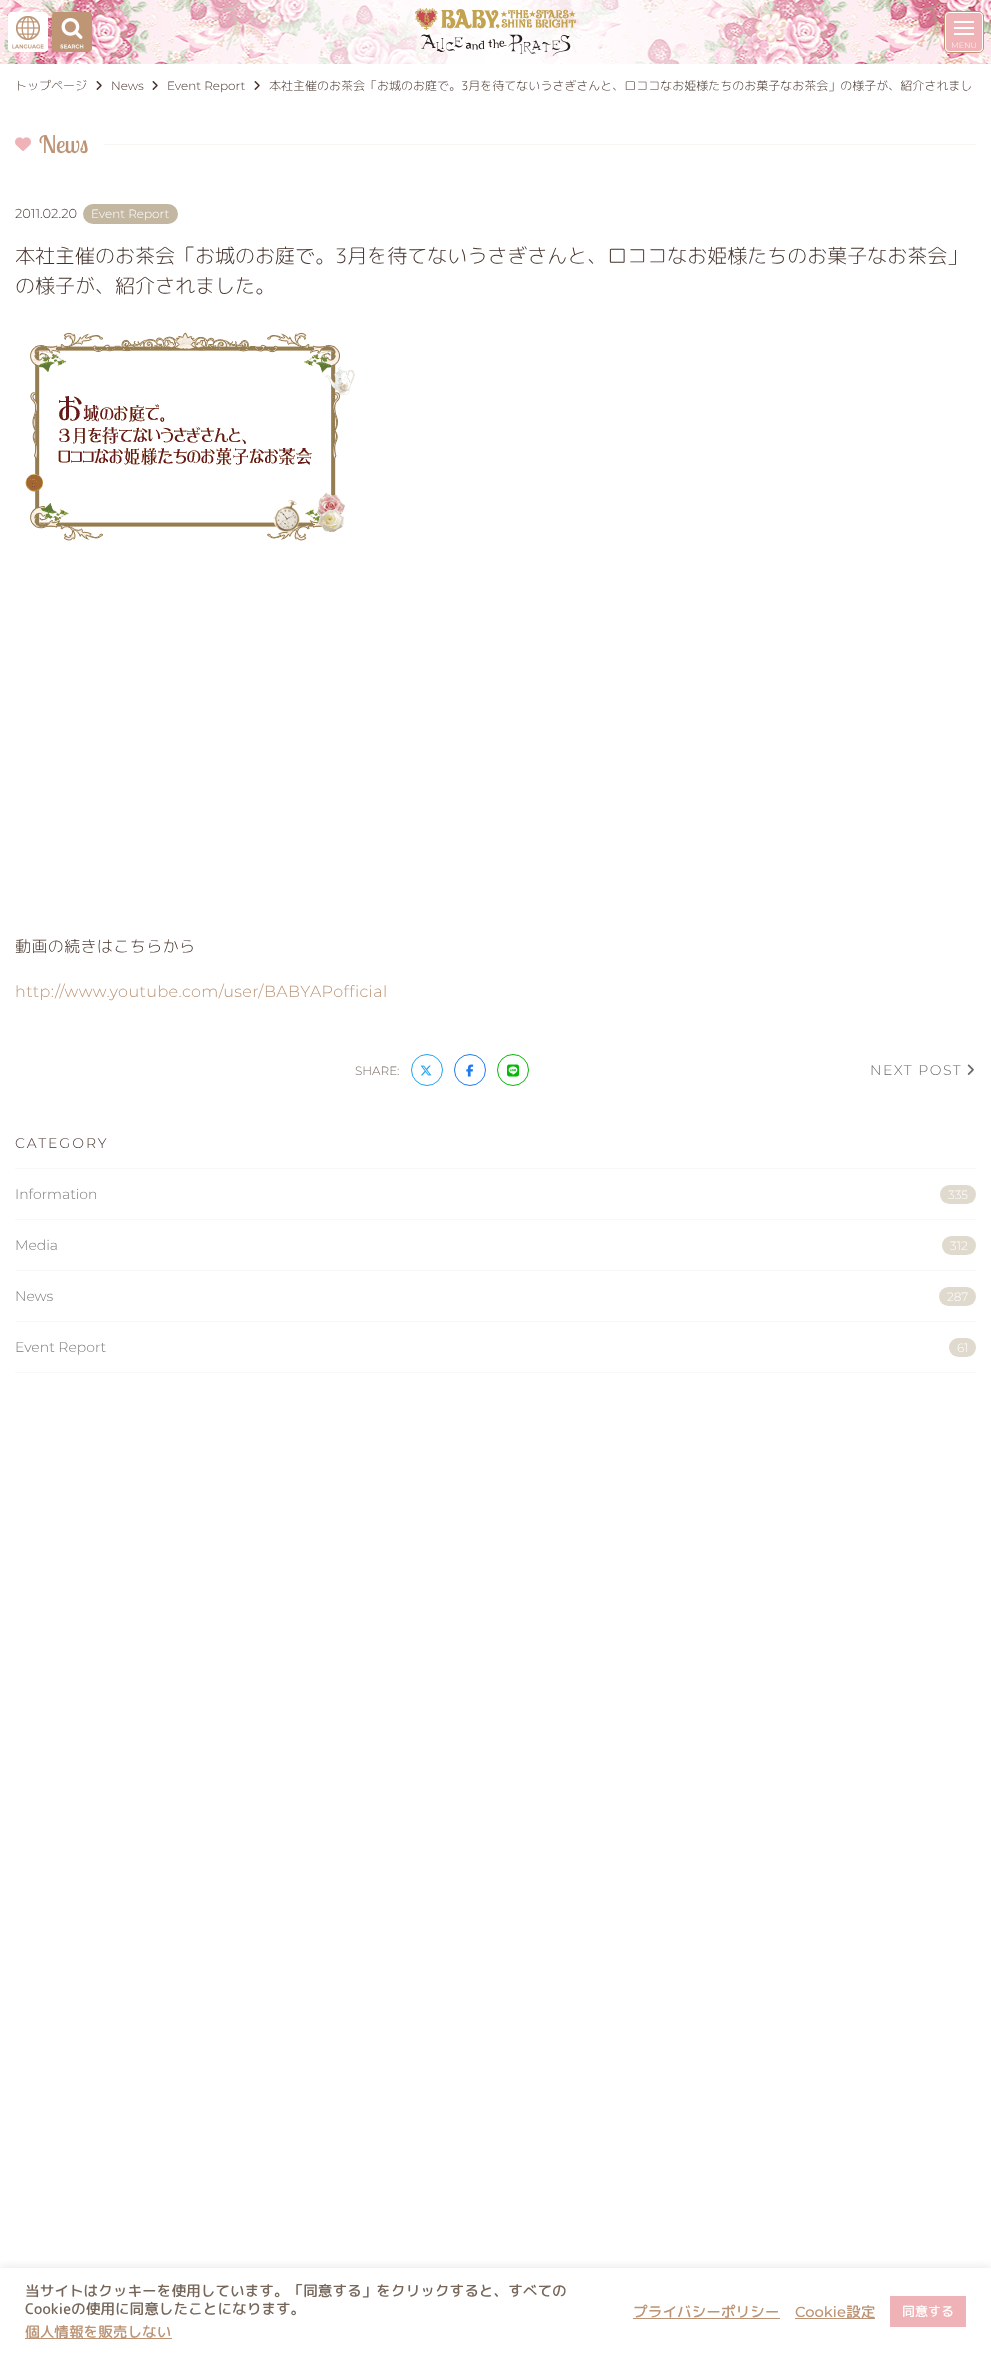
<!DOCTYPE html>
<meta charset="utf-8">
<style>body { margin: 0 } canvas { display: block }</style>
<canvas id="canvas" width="991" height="2355"></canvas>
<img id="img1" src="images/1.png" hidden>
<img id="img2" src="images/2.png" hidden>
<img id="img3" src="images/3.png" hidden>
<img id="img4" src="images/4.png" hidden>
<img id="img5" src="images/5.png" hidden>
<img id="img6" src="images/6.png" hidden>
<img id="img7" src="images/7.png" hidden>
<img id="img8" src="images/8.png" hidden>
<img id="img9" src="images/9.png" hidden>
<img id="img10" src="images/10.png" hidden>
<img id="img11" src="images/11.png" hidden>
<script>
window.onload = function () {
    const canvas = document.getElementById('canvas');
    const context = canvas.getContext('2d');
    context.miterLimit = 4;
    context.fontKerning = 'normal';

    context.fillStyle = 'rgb(255, 255, 255)';
    context.fillRect(0, 0, 991, 2355);
    context.drawImage(document.getElementById('img1'), 0, 0, 991, 64);
    context.drawImage(document.getElementById('img2'), 8, 12, 40, 40);
    context.drawImage(document.getElementById('img3'), 52, 12, 40, 40);
    context.drawImage(document.getElementById('img4'), 415, 8, 161, 48);
    context.beginPath();
    context.roundRect(944.5, 11.5, 39, 41, 4.5);
    context.strokeStyle = 'rgb(190, 150, 117)';
    context.stroke();
    context.fillStyle = 'rgb(239, 178, 183)';
    context.beginPath();
    context.roundRect(945.5, 12.5, 37, 39, 3.5);
    context.fill();
    context.strokeStyle = 'rgb(255, 255, 255)';
    context.stroke();
    context.fillStyle = 'rgb(255, 255, 255)';
    context.fillRect(954, 21, 20, 2);
    context.fillRect(954, 27, 20, 2);
    context.fillRect(954, 33, 20, 2);
    context.drawImage(document.getElementById('img5'), 96, 81, 6, 9);
    context.drawImage(document.getElementById('img5'), 152, 81, 6, 9);
    context.drawImage(document.getElementById('img5'), 254, 81, 6, 9);
    context.drawImage(document.getElementById('img6'), 15, 137, 16, 14);
    context.fillStyle = 'rgb(248, 244, 241)';
    context.fillRect(104, 144, 872, 1);
    context.fillStyle = 'rgb(196, 183, 161)';
    context.beginPath();
    context.roundRect(83, 204, 95, 20, 10);
    context.fill();
    context.drawImage(document.getElementById('img7'), 25, 332, 330, 209);
    context.beginPath();
    context.arc(427, 1070, 15.5, 0, 2 * Math.PI);
    context.strokeStyle = 'rgb(34, 163, 242)';
    context.stroke();
    context.drawImage(document.getElementById('img8'), 420, 1065, 12, 11);
    context.beginPath();
    context.arc(470, 1070, 15.5, 0, 2 * Math.PI);
    context.strokeStyle = 'rgb(29, 122, 242)';
    context.stroke();
    context.drawImage(document.getElementById('img9'), 466, 1064, 8, 13);
    context.beginPath();
    context.arc(513, 1070, 15.5, 0, 2 * Math.PI);
    context.strokeStyle = 'rgb(5, 186, 5)';
    context.stroke();
    context.drawImage(document.getElementById('img10'), 507, 1064, 12, 13);
    context.drawImage(document.getElementById('img11'), 967, 1064, 7, 11);
    context.fillStyle = 'rgb(248, 248, 248)';
    context.fillRect(15, 1168, 961, 1);
    context.fillRect(15, 1219, 961, 1);
    context.fillStyle = 'rgb(224, 217, 205)';
    context.beginPath();
    context.roundRect(940, 1185, 36, 19, 9.5);
    context.fill();
    context.fillStyle = 'rgb(248, 248, 248)';
    context.fillRect(15, 1270, 961, 1);
    context.fillStyle = 'rgb(224, 217, 205)';
    context.beginPath();
    context.roundRect(942, 1236, 34, 19, 9.5);
    context.fill();
    context.fillStyle = 'rgb(248, 248, 248)';
    context.fillRect(15, 1321, 961, 1);
    context.fillStyle = 'rgb(224, 217, 205)';
    context.beginPath();
    context.roundRect(939, 1287, 37, 19, 9.5);
    context.fill();
    context.fillStyle = 'rgb(248, 248, 248)';
    context.fillRect(15, 1372, 961, 1);
    context.fillStyle = 'rgb(224, 217, 205)';
    context.beginPath();
    context.roundRect(949, 1338, 27, 19, 9.5);
    context.fill();
    context.save();
    context.beginPath();
    context.rect(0, 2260, 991, 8);
    context.clip();
    context.fillStyle = 'rgba(174, 173, 173, 0.3)';
    context.filter = 'blur(5px)';
    context.beginPath();
    context.rect(0, 2267, 991, 87);
    context.fill();
    context.filter = 'none';
    context.restore();
    context.fillStyle = 'rgb(188, 148, 117)';
    context.fillRect(25, 2338, 147, 1);
    context.fillRect(633, 2318, 147, 1);
    context.fillRect(795, 2318, 80, 1);
    context.fillStyle = 'rgb(239, 178, 183)';
    context.fillRect(890, 2296, 76, 31);
    context.font = '300 8px Montserrat';
    context.fillStyle = 'rgb(255, 255, 255)';
    context.fillText('MENU', 951, 48);
    context.font = '300 12px "Rounded Mplus 1c"';
    context.fillStyle = 'rgb(68, 50, 43)';
    context.fillText('トップページ', 15, 90);
    context.font = '300 12px Montserrat';
    context.fillText('News', 111, 90);
    context.fillText('Event Report', 167, 90);
    context.font = '300 12px "Rounded Mplus 1c"';
    context.fillText('本社主催のお茶会「お城のお庭で。3月を待てないうさぎさんと、ロココなお姫様たちのお菓子なお茶会」の様子が、紹介されまし', 269, 90);
    context.font = '24px Lobster Two';
    context.fillStyle = 'rgb(188, 148, 117)';
    context.fillText('News', 39, 153);
    context.font = '300 13px Montserrat';
    context.fillStyle = 'rgb(68, 50, 43)';
    context.fillText('2011.02.20', 15, 218);
    context.font = '300 12px Montserrat';
    context.fillStyle = 'rgb(255, 255, 255)';
    context.fillText('Event Report', 91, 218);
    context.font = '300 20px "Rounded Mplus 1c"';
    context.fillStyle = 'rgb(68, 50, 43)';
    context.fillText('本社主催のお茶会「お城のお庭で。3月を待てないうさぎさんと、ロココなお姫様たちのお菓子なお茶会」', 15, 263);
    context.fillText('の様子が、紹介されました。', 15, 293);
    context.letterSpacing = '0.4px';
    context.font = '300 16px "Rounded Mplus 1c"';
    context.fillText('動画の続きはこちらから', 15, 952);
    context.font = '300 16px Montserrat';
    context.fillStyle = 'rgb(188, 148, 117)';
    context.fillText('http://www.youtube.com/user/BABYAPofficial', 15, 997);
    context.letterSpacing = '0px';
    context.font = '300 12px Montserrat';
    context.fillStyle = 'rgb(115, 101, 96)';
    context.fillText('SHARE:', 355, 1075);
    context.letterSpacing = '1.5px';
    context.font = '300 14px Montserrat';
    context.fillStyle = 'rgb(105, 105, 105)';
    context.fillText('NEXT POST', 870, 1075);
    context.letterSpacing = '2px';
    context.fillStyle = 'rgb(68, 50, 43)';
    context.fillText('CATEGORY', 15, 1148);
    context.letterSpacing = '0px';
    context.fillStyle = 'rgb(122, 122, 122)';
    context.fillText('Information', 15, 1199);
    context.font = '300 12px Montserrat';
    context.fillStyle = 'rgb(255, 255, 255)';
    context.fillText('335', 948, 1199);
    context.font = '300 14px Montserrat';
    context.fillStyle = 'rgb(122, 122, 122)';
    context.fillText('Media', 15, 1250);
    context.font = '300 12px Montserrat';
    context.fillStyle = 'rgb(255, 255, 255)';
    context.fillText('312', 950, 1250);
    context.font = '300 14px Montserrat';
    context.fillStyle = 'rgb(122, 122, 122)';
    context.fillText('News', 15, 1301);
    context.font = '300 12px Montserrat';
    context.fillStyle = 'rgb(255, 255, 255)';
    context.fillText('287', 947, 1301);
    context.font = '300 14px Montserrat';
    context.fillStyle = 'rgb(122, 122, 122)';
    context.fillText('Event Report', 15, 1352);
    context.font = '300 12px Montserrat';
    context.fillStyle = 'rgb(255, 255, 255)';
    context.fillText('61', 957, 1352);
    context.font = '500 14.65px "Rounded Mplus 1c"';
    context.fillStyle = 'rgb(118, 102, 90)';
    context.fillText('当サイトはクッキーを使用しています。「同意する」をクリックすると、すべての', 25, 2296);
    context.fillText('Cookieの使用に同意したことになります。', 25, 2314);
    context.fillStyle = 'rgb(188, 148, 117)';
    context.fillText('個人情報を販売しない', 25, 2337);
    context.fillText('プライバシーポリシー', 633, 2317);
    context.font = '500 14.65px Montserrat';
    context.fillText('Cookie', 795, 2317);
    context.font = '500 14.65px "Rounded Mplus 1c"';
    context.fillText('設定', 846, 2317);
    context.font = '500 13px "Rounded Mplus 1c"';
    context.fillStyle = 'rgb(255, 255, 255)';
    context.fillText('同意する', 902, 2316);
};
</script>
